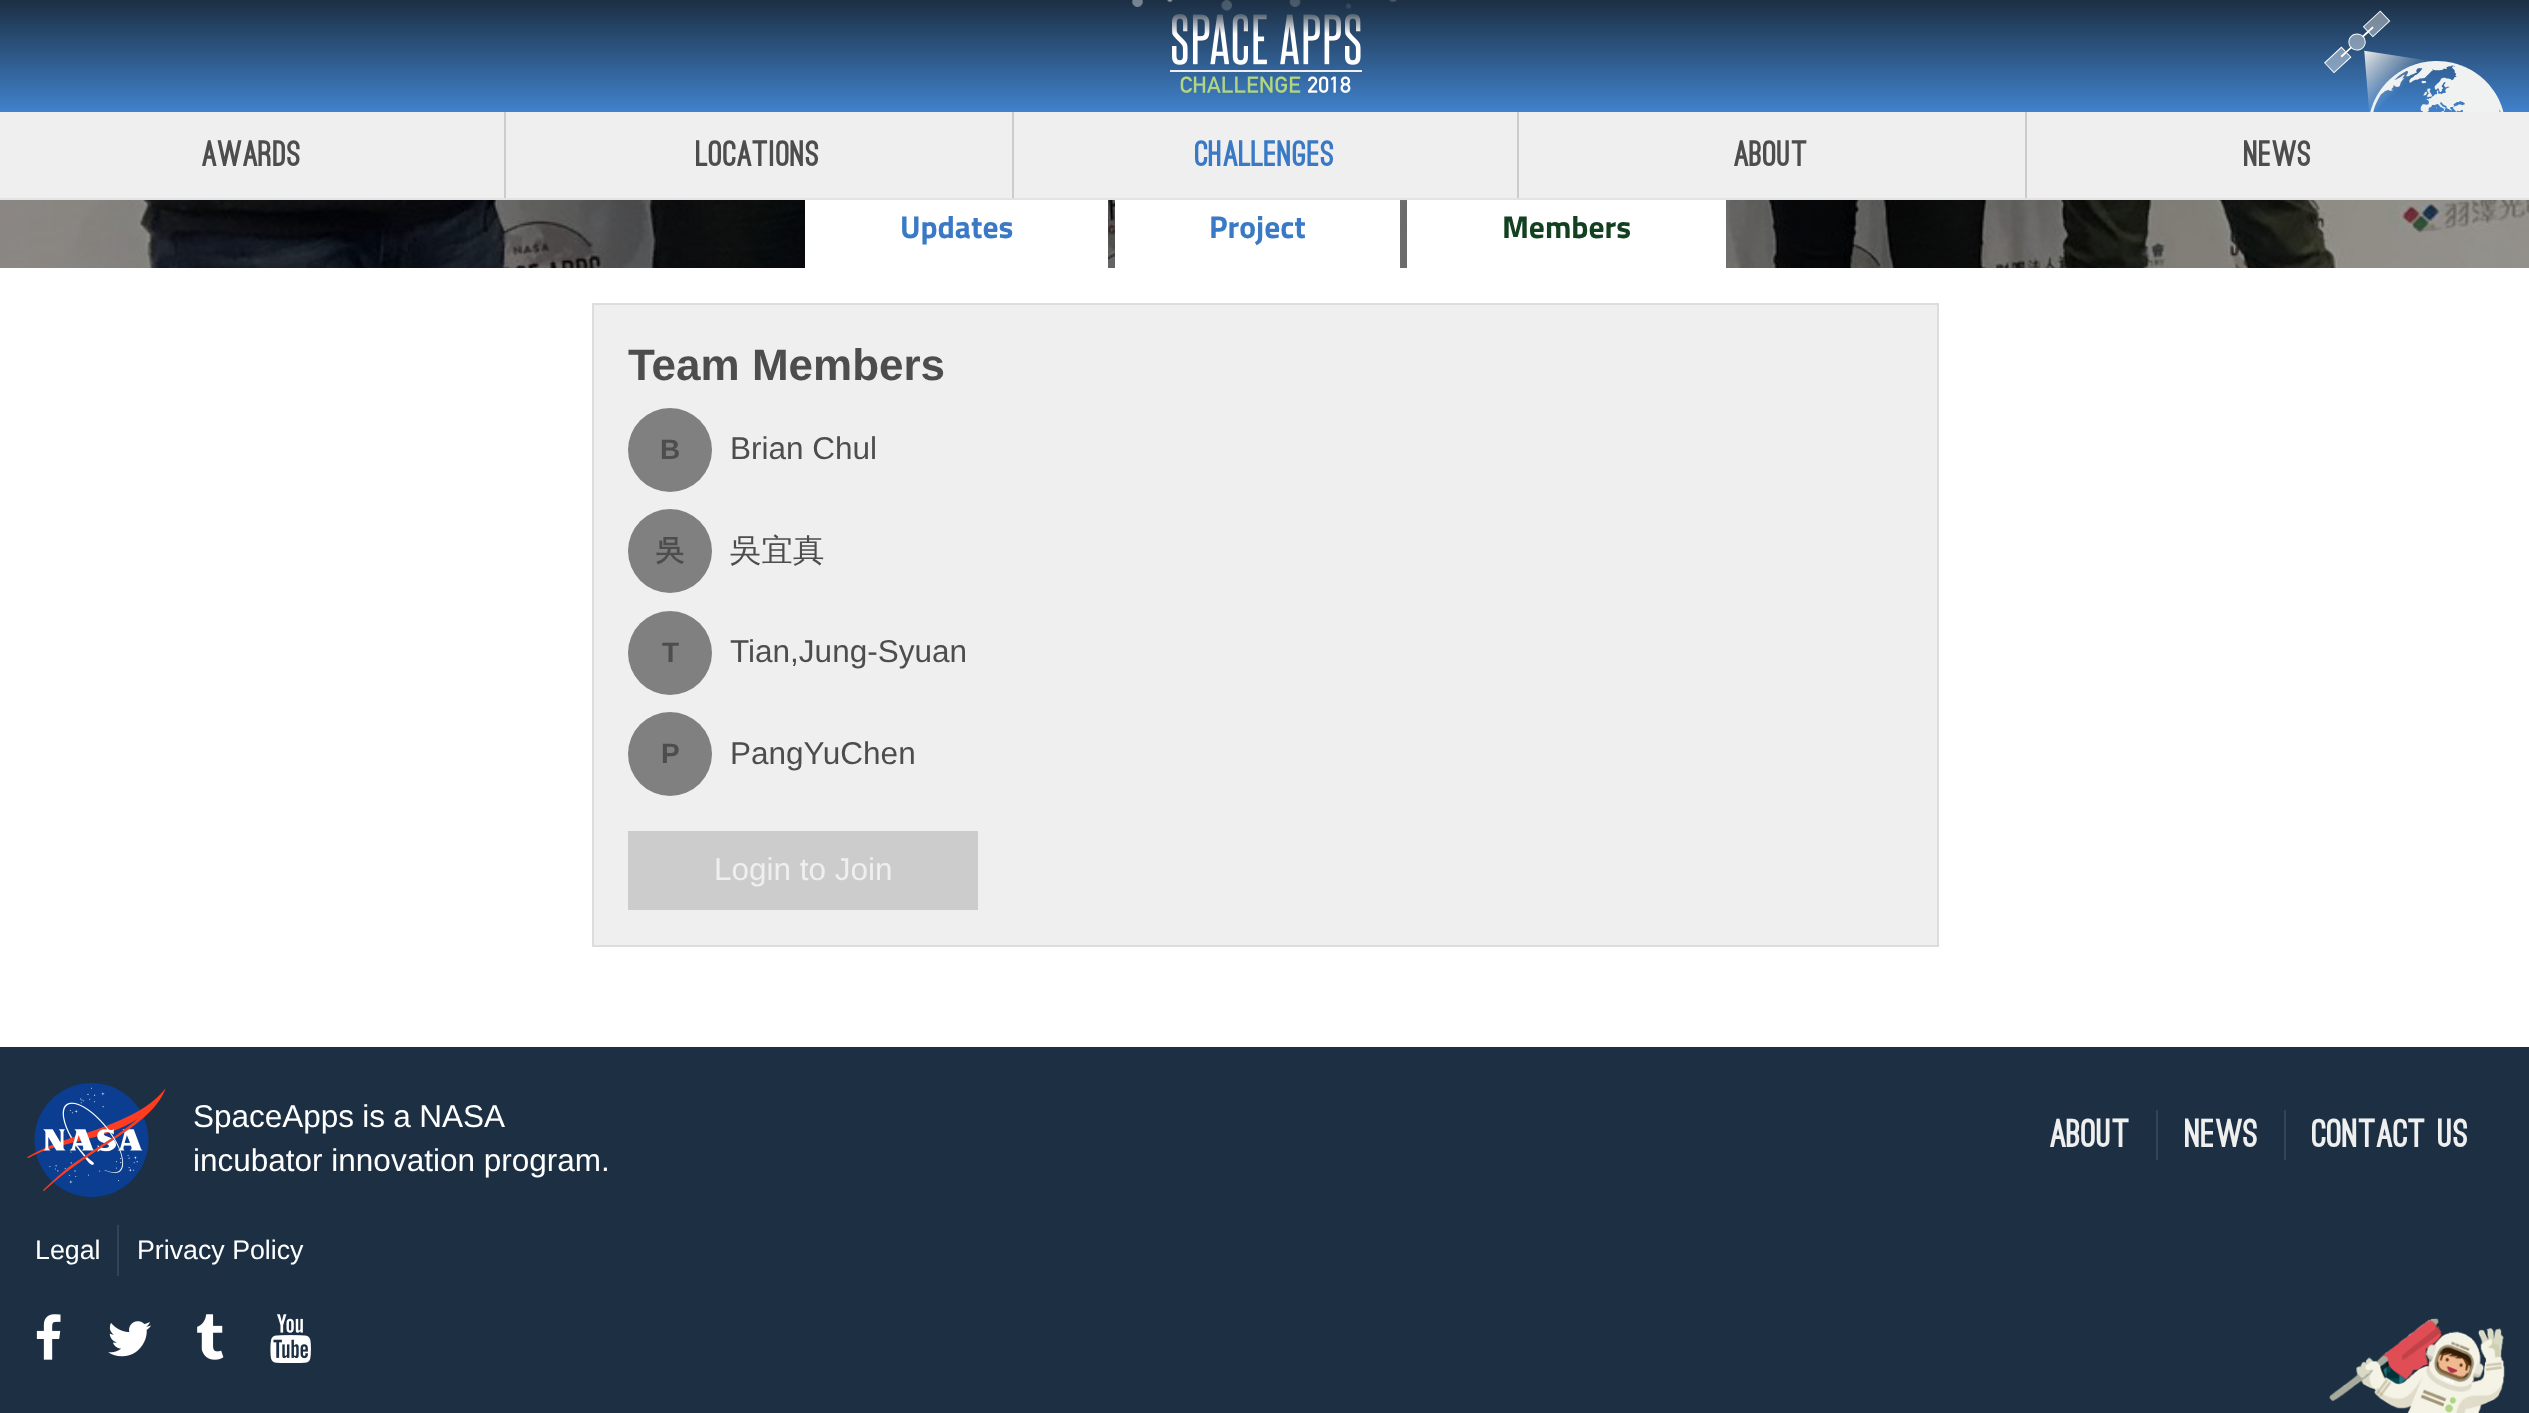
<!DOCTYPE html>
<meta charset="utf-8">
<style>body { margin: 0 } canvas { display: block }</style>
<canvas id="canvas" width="2529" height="1413"></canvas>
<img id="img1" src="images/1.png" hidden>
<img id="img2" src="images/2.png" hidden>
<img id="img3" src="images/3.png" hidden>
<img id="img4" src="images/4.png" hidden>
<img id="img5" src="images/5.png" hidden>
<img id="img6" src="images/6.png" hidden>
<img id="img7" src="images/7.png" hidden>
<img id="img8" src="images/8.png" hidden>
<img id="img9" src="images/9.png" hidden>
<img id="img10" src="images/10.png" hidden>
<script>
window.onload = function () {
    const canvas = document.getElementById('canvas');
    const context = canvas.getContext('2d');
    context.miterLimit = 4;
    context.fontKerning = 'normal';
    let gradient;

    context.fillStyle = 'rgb(255, 255, 255)';
    context.fillRect(0, 0, 2529, 1413);
    context.fillStyle = 'rgb(239, 239, 239)';
    context.fillRect(0, 112, 2529, 86);
    context.fillStyle = 'rgb(227, 227, 227)';
    context.fillRect(0, 198, 2529, 2);
    gradient = context.createLinearGradient(1265, 112, 1265, 0);
    gradient.addColorStop(0, 'rgb(64, 130, 205)');
    gradient.addColorStop(1, 'rgb(28, 47, 67)');
    context.fillStyle = gradient;
    context.fillRect(0, 0, 2529, 112);
    context.drawImage(document.getElementById('img1'), 1132, 0, 265, 11);
    context.drawImage(document.getElementById('img2'), 1170, 14, 192, 79);
    context.drawImage(document.getElementById('img3'), 2324, 10, 180, 102);
    context.fillStyle = 'rgb(204, 204, 204)';
    context.fillRect(504, 112, 2, 86);
    context.fillRect(1012, 112, 2, 86);
    context.fillRect(1517, 112, 2, 86);
    context.fillRect(2025, 112, 2, 86);
    context.drawImage(document.getElementById('img4'), 0, 200, 2529, 68);
    context.fillStyle = 'rgb(255, 255, 255)';
    context.fillRect(805, 200, 303, 68);
    context.fillRect(1115, 200, 285, 68);
    context.fillRect(1407, 200, 319, 68);
    context.fillStyle = 'rgb(239, 239, 239)';
    context.beginPath();
    context.rect(593, 304, 1345, 642);
    context.fill();
    context.strokeStyle = 'rgb(221, 221, 221)';
    context.lineWidth = 2;
    context.stroke();
    context.fillStyle = 'rgb(128, 128, 128)';
    context.beginPath();
    context.arc(670, 450, 42, 0, 2 * Math.PI);
    context.fill();
    context.beginPath();
    context.arc(670, 551, 42, 0, 2 * Math.PI);
    context.fill();
    context.beginPath();
    context.arc(670, 653, 42, 0, 2 * Math.PI);
    context.fill();
    context.beginPath();
    context.arc(670, 754, 42, 0, 2 * Math.PI);
    context.fill();
    context.fillStyle = 'rgb(204, 204, 204)';
    context.fillRect(628, 831, 350, 79);
    context.fillStyle = 'rgb(28, 47, 67)';
    context.fillRect(0, 1047, 2529, 366);
    context.drawImage(document.getElementById('img5'), 27, 1083, 139, 114);
    context.fillStyle = 'rgb(51, 68, 86)';
    context.fillRect(2156, 1110, 2, 50);
    context.fillRect(2284, 1110, 2, 50);
    context.fillRect(117, 1225, 2, 51);
    context.drawImage(document.getElementById('img6'), 36, 1314, 25, 46);
    context.drawImage(document.getElementById('img7'), 108, 1321, 43, 36);
    context.drawImage(document.getElementById('img8'), 197, 1314, 27, 46);
    context.drawImage(document.getElementById('img9'), 270, 1314, 41, 49);
    context.drawImage(document.getElementById('img10'), 2329, 1318, 176, 95);
    context.letterSpacing = '0.25px';
    context.font = '900 35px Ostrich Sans';
    context.fillStyle = 'rgb(77, 77, 77)';
    context.fillText('Awards', 202, 166);
    context.fillText('Locations', 696, 166);
    context.fillStyle = 'rgb(57, 121, 197)';
    context.fillText('Challenges', 1195, 166);
    context.fillStyle = 'rgb(77, 77, 77)';
    context.fillText('About', 1734, 166);
    context.fillText('News', 2244, 166);
    context.letterSpacing = '0px';
    context.font = 'bold 31.5px Titillium Web';
    context.fillStyle = 'rgb(57, 121, 197)';
    context.fillText('Updates', 900, 238);
    context.fillText('Project', 1209, 238);
    context.fillStyle = 'rgb(19, 64, 32)';
    context.fillText('Members', 1502, 238);
    context.font = 'bold 44px Liberation Sans';
    context.fillStyle = 'rgb(77, 77, 77)';
    context.fillText('Team Members', 628, 380);
    context.font = 'bold 28px Liberation Sans';
    context.fillText('B', 660, 459);
    context.font = '31.5px Liberation Sans';
    context.fillText('Brian Chul', 730, 459);
    context.font = 'bold 28px WenQuanYi Zen Hei';
    context.fillText('吳', 656, 560);
    context.font = '500 31.5px WenQuanYi Zen Hei';
    context.fillText('吳宜真', 730, 561);
    context.font = 'bold 28px Liberation Sans';
    context.fillText('T', 662, 662);
    context.font = '31.5px Liberation Sans';
    context.fillText('Tian,Jung-Syuan', 730, 662);
    context.font = 'bold 28px Liberation Sans';
    context.fillText('P', 661, 763);
    context.font = '31.5px Liberation Sans';
    context.fillText('PangYuChen', 730, 764);
    context.fillStyle = 'rgb(239, 239, 239)';
    context.fillText('Login to Join', 714, 880);
    context.wordSpacing = '-0.5px';
    context.fillStyle = 'rgb(255, 255, 255)';
    context.fillText('SpaceApps is a NASA', 193, 1127);
    context.wordSpacing = '0px';
    context.fillText('incubator innovation program.', 193, 1171);
    context.font = '900 38.5px Ostrich Sans';
    context.fillStyle = 'rgb(239, 239, 239)';
    context.fillText('About', 2050, 1147);
    context.fillText('News', 2185, 1147);
    context.fillText('Contact Us', 2312, 1147);
    context.font = '26.75px Liberation Sans';
    context.fillStyle = 'rgb(255, 255, 255)';
    context.fillText('Legal', 35, 1259);
    context.fillText('Privacy Policy', 137, 1259);
};
</script>
